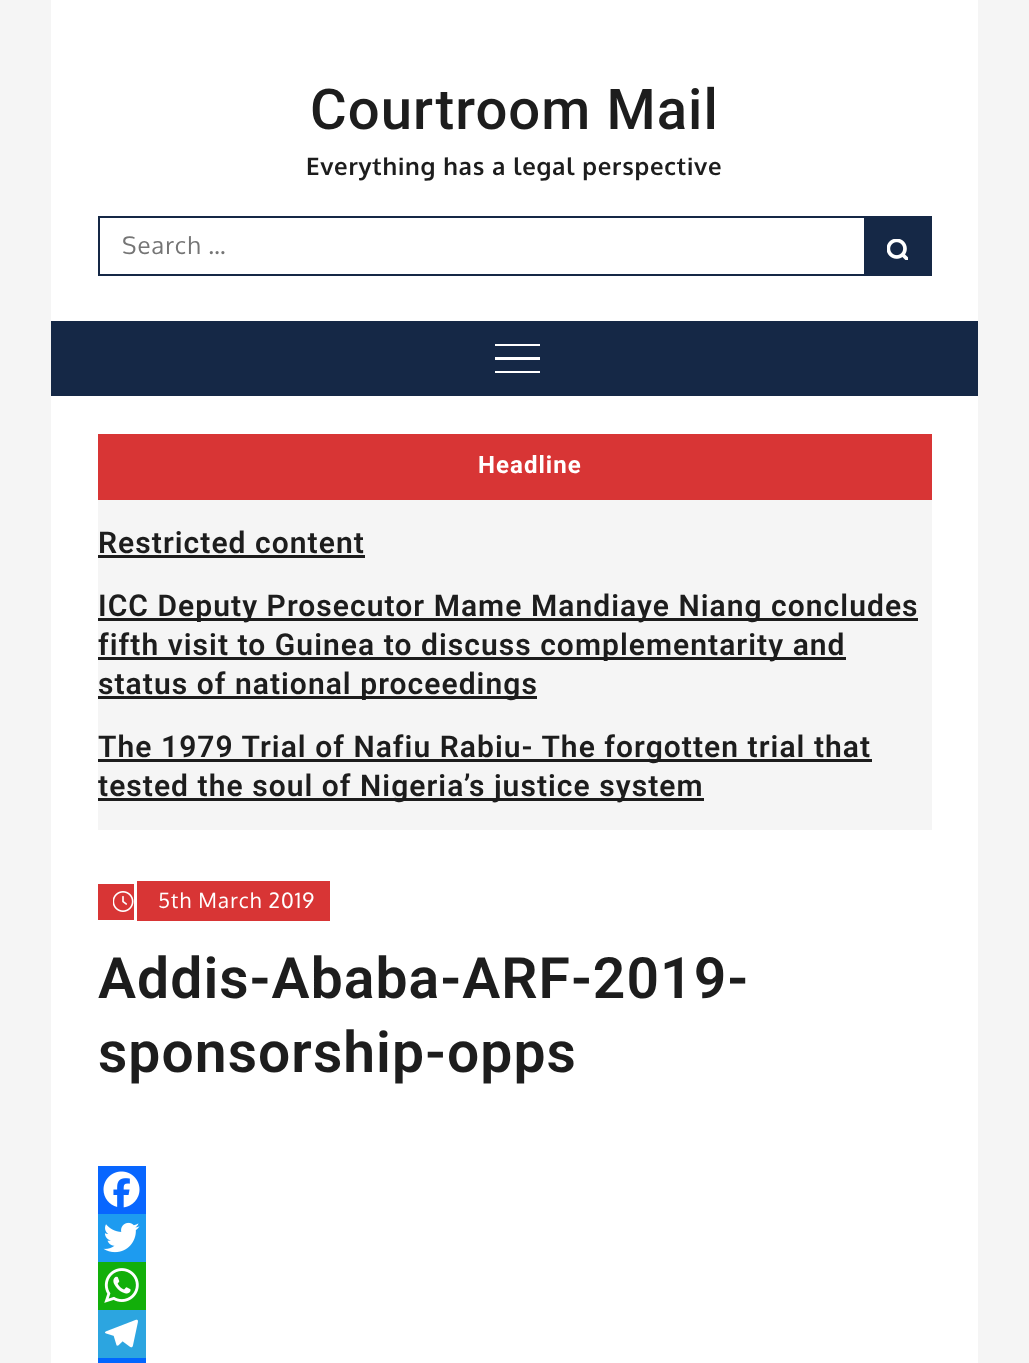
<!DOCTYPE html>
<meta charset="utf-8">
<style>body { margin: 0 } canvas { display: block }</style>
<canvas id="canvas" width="1029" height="1363"></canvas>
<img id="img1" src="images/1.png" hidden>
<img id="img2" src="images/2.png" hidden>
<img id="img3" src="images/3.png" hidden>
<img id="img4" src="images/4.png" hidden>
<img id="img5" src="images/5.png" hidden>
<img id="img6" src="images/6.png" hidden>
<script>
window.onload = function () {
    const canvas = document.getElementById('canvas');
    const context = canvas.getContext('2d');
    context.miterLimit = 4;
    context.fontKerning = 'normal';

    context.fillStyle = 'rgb(245, 245, 245)';
    context.fillRect(0, 0, 1029, 1363);
    context.fillStyle = 'rgb(255, 255, 255)';
    context.fillRect(51, 0, 927, 1363);
    context.strokeStyle = 'rgb(21, 40, 70)';
    context.lineWidth = 2;
    context.strokeRect(99, 217, 832, 58);
    context.fillStyle = 'rgb(21, 40, 70)';
    context.fillRect(864, 218, 66, 56);
    context.drawImage(document.getElementById('img1'), 887, 239, 21, 21);
    context.fillRect(51, 321, 927, 75);
    context.fillStyle = 'rgb(255, 255, 255)';
    context.fillRect(495, 344, 45, 2);
    context.fillRect(495, 357, 45, 3);
    context.fillRect(495, 371, 45, 2);
    context.fillStyle = 'rgb(216, 53, 53)';
    context.fillRect(98, 434, 834, 66);
    context.fillStyle = 'rgb(245, 245, 245)';
    context.fillRect(98, 500, 834, 330);
    context.fillStyle = 'rgb(29, 29, 29)';
    context.fillRect(98, 555, 267, 3);
    context.fillRect(98, 618, 820, 3);
    context.fillRect(98, 657, 748, 3);
    context.fillRect(98, 696, 439, 3);
    context.fillRect(98, 759, 774, 3);
    context.fillRect(98, 798, 606, 3);
    context.fillStyle = 'rgb(216, 53, 53)';
    context.fillRect(98, 884, 36, 36);
    context.fillRect(137, 881, 193, 40);
    context.drawImage(document.getElementById('img2'), 113, 891, 21, 21);
    context.fillStyle = 'rgb(8, 102, 255)';
    context.fillRect(98, 1166, 48, 48);
    context.drawImage(document.getElementById('img3'), 103, 1171, 37, 37);
    context.fillStyle = 'rgb(29, 155, 240)';
    context.fillRect(98, 1214, 48, 48);
    context.drawImage(document.getElementById('img4'), 103, 1222, 37, 31);
    context.fillStyle = 'rgb(18, 175, 10)';
    context.fillRect(98, 1262, 48, 48);
    context.drawImage(document.getElementById('img5'), 104, 1268, 35, 35);
    context.fillStyle = 'rgb(44, 165, 224)';
    context.fillRect(98, 1310, 48, 48);
    context.drawImage(document.getElementById('img6'), 105, 1319, 33, 29);
    context.fillStyle = 'rgb(1, 102, 255)';
    context.fillRect(98, 1358, 48, 5);
    context.letterSpacing = '1.05px';
    context.font = '500 56.25px Roboto';
    context.fillStyle = 'rgb(29, 29, 29)';
    context.fillText('Courtroom Mail', 310, 129);
    context.letterSpacing = '0.75px';
    context.font = 'bold 24px Oxygen';
    context.fillText('Everything has a legal perspective', 306, 175);
    context.letterSpacing = '1.05px';
    context.font = '24px Oxygen';
    context.fillStyle = 'rgb(117, 117, 117)';
    context.fillText('Search …', 122, 254);
    context.font = 'bold 24px Roboto';
    context.fillStyle = 'rgb(255, 255, 255)';
    context.fillText('Headline', 478, 473);
    context.font = '600 30px Roboto';
    context.fillStyle = 'rgb(29, 29, 29)';
    context.fillText('Restricted content', 98, 553);
    context.fillText('ICC Deputy Prosecutor Mame Mandiaye Niang concludes', 98, 616);
    context.fillText('fifth visit to Guinea to discuss complementarity and', 98, 655);
    context.fillText('status of national proceedings', 98, 694);
    context.fillText('The 1979 Trial of Nafiu Rabiu- The forgotten trial that', 98, 757);
    context.fillText('tested the soul of Nigeria’s justice system', 98, 796);
    context.font = '21px Oxygen';
    context.fillStyle = 'rgb(255, 255, 255)';
    context.fillText('5th March 2019', 158, 908);
    context.font = '600 57px Roboto';
    context.fillStyle = 'rgb(29, 29, 29)';
    context.fillText('Addis-Ababa-ARF-2019-', 98, 998);
    context.fillText('sponsorship-opps', 98, 1072);
};
</script>
